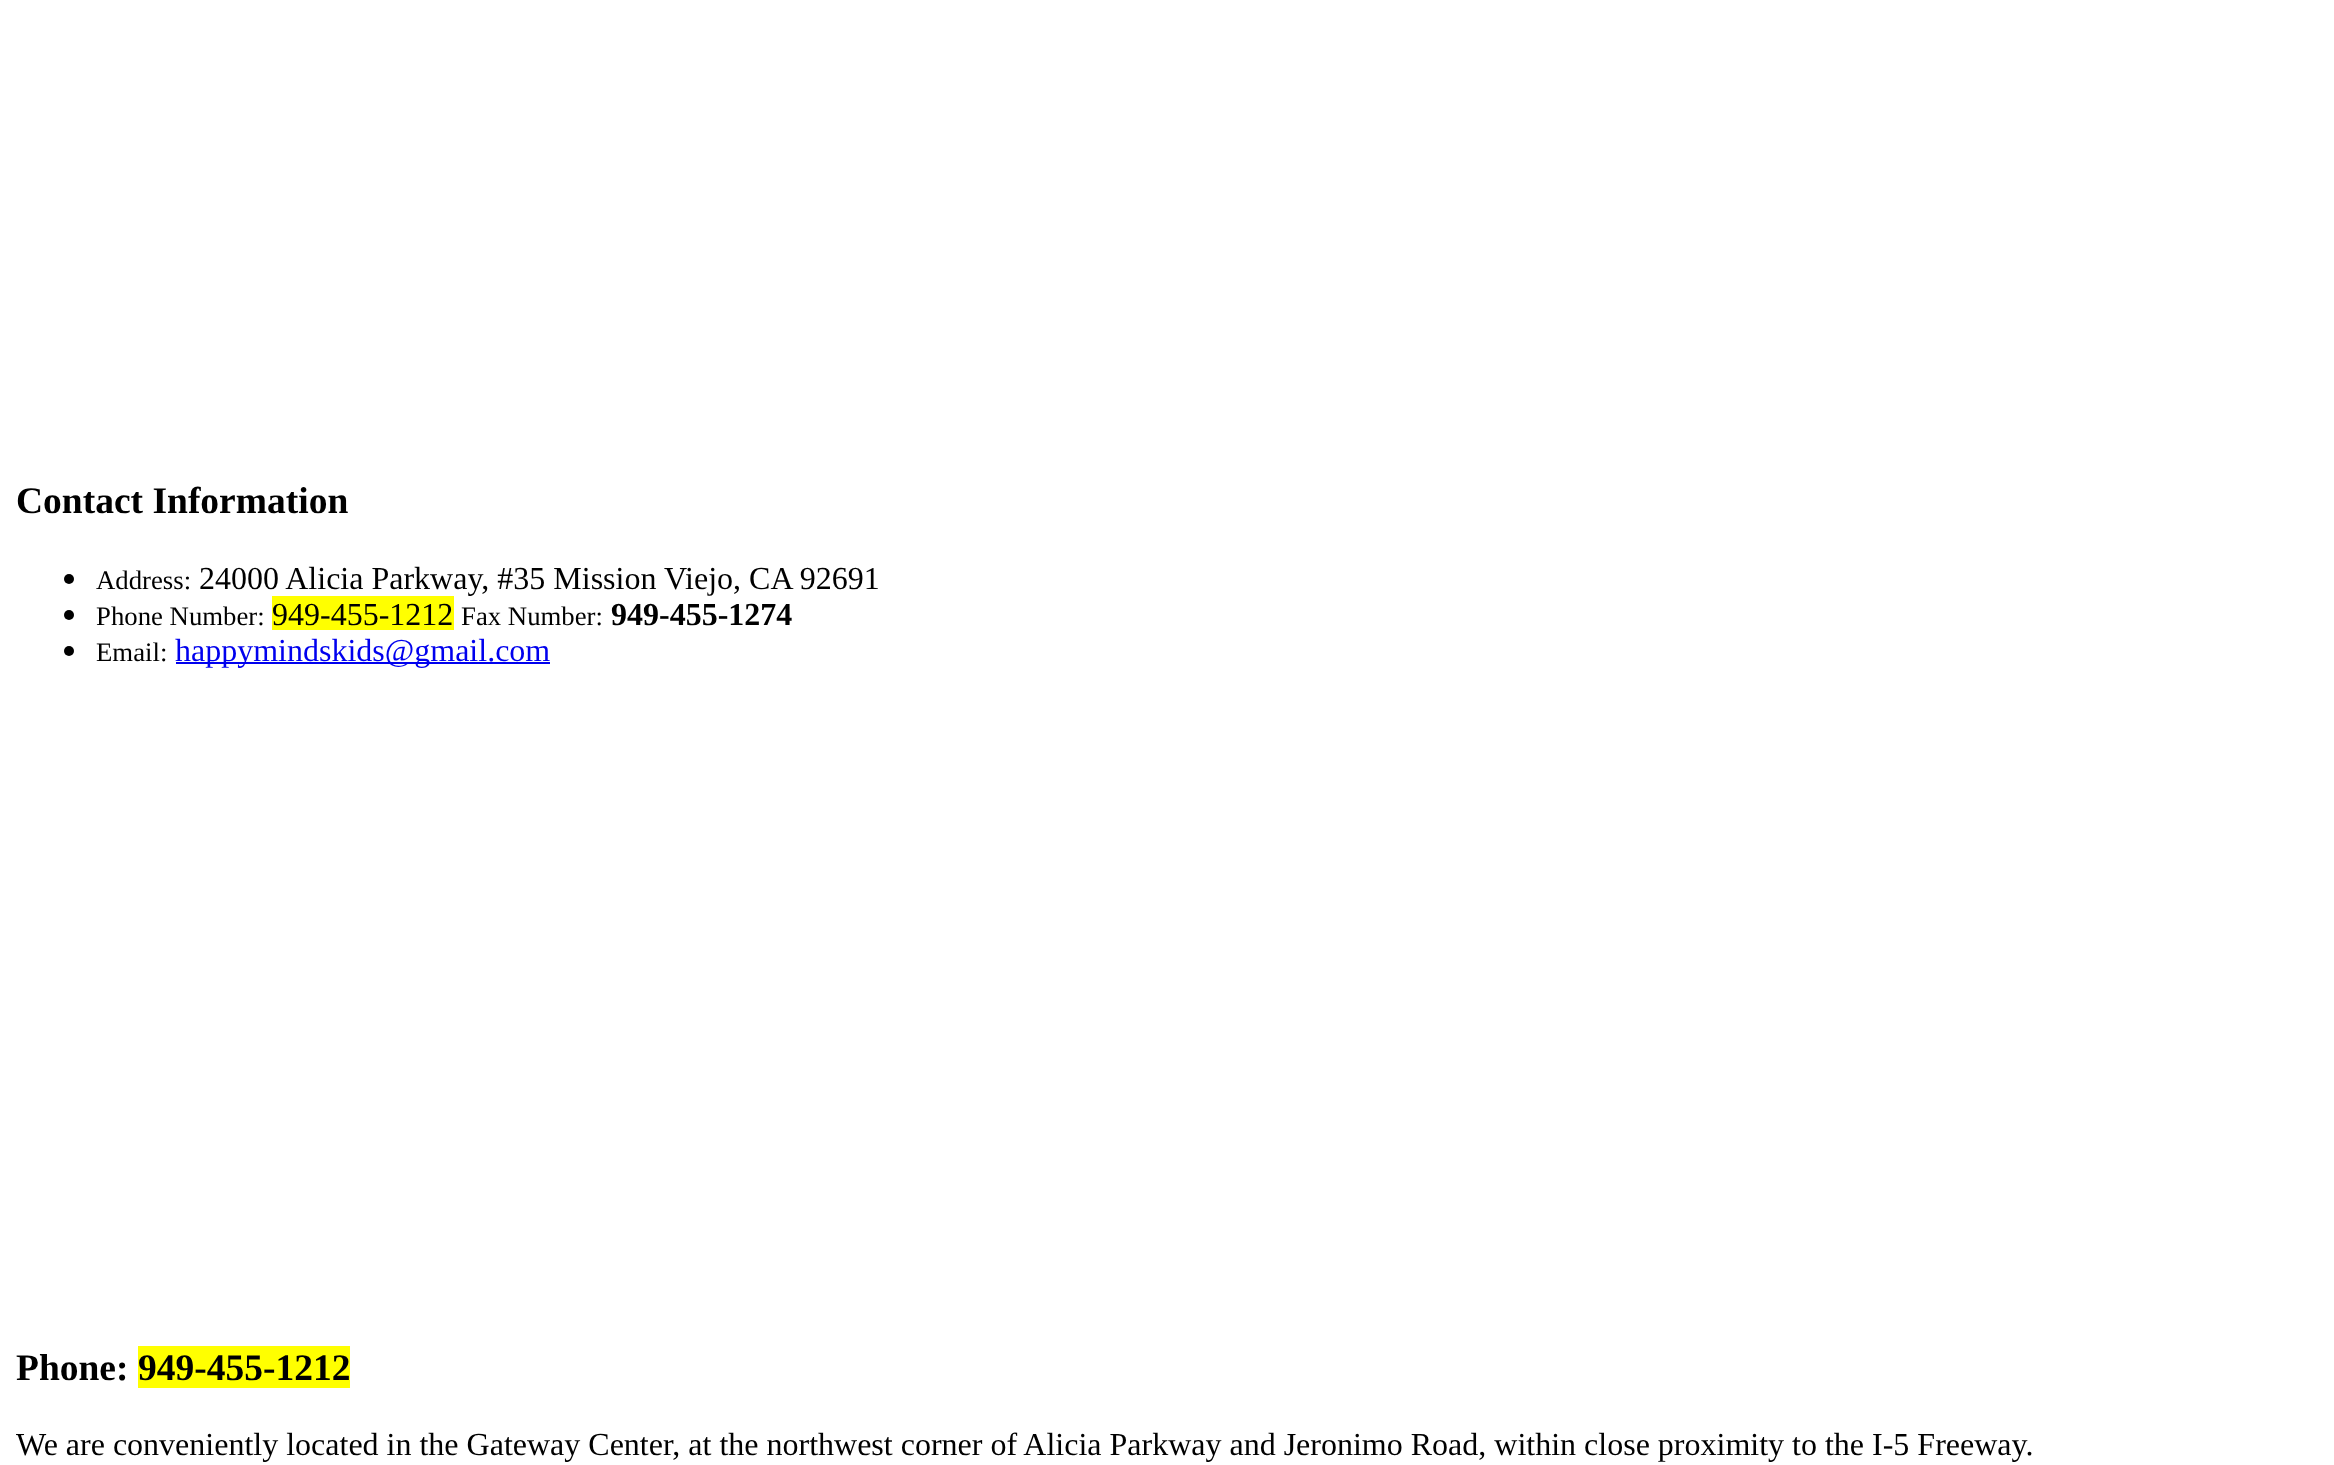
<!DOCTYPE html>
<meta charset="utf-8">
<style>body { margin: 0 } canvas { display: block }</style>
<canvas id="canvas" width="2334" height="1465"></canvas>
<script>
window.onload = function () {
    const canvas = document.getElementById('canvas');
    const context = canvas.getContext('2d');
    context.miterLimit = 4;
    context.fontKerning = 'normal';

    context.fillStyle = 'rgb(255, 255, 255)';
    context.fillRect(0, 0, 2334, 1465);
    context.fillStyle = 'rgb(0, 0, 0)';
    context.beginPath();
    context.arc(69, 579, 5, 0, 2 * Math.PI);
    context.fill();
    context.beginPath();
    context.arc(69, 615, 5, 0, 2 * Math.PI);
    context.fill();
    context.fillStyle = 'rgb(255, 255, 0)';
    context.fillRect(272, 596, 182, 34);
    context.fillStyle = 'rgb(0, 0, 0)';
    context.beginPath();
    context.arc(69, 651, 5, 0, 2 * Math.PI);
    context.fill();
    context.fillStyle = 'rgb(0, 0, 238)';
    context.fillRect(176, 662, 374, 2);
    context.fillStyle = 'rgb(255, 255, 0)';
    context.fillRect(138, 1346, 212, 42);
    context.font = 'bold 37.5px Liberation Serif';
    context.fillStyle = 'rgb(0, 0, 0)';
    context.fillText('Contact Information', 16, 513);
    context.font = '26.75px Liberation Serif';
    context.fillText('Address:', 96, 589);
    context.font = '32px Liberation Serif';
    context.fillText('24000 Alicia Parkway, #35 Mission Viejo, CA 92691', 199, 589);
    context.font = '26.75px Liberation Serif';
    context.fillText('Phone Number:', 96, 625);
    context.font = '32px Liberation Serif';
    context.fillText('949-455-1212', 272, 625);
    context.font = '26.75px Liberation Serif';
    context.fillText('Fax Number:', 461, 625);
    context.font = 'bold 32px Liberation Serif';
    context.fillText('949-455-1274', 611, 625);
    context.font = '26.75px Liberation Serif';
    context.fillText('Email:', 96, 661);
    context.font = '32px Liberation Serif';
    context.fillStyle = 'rgb(0, 0, 238)';
    context.fillText('happymindskids@gmail.com', 175, 661);
    context.font = 'bold 37.5px Liberation Serif';
    context.fillStyle = 'rgb(0, 0, 0)';
    context.fillText('Phone:', 16, 1380);
    context.fillText('949-455-1212', 138, 1380);
    context.font = '32px Liberation Serif';
    context.fillText('We are conveniently located in the Gateway Center, at the northwest corner of Alicia Parkway and Jeronimo Road, within close proximity to the I-5 Freeway.', 16, 1455);
};
</script>
